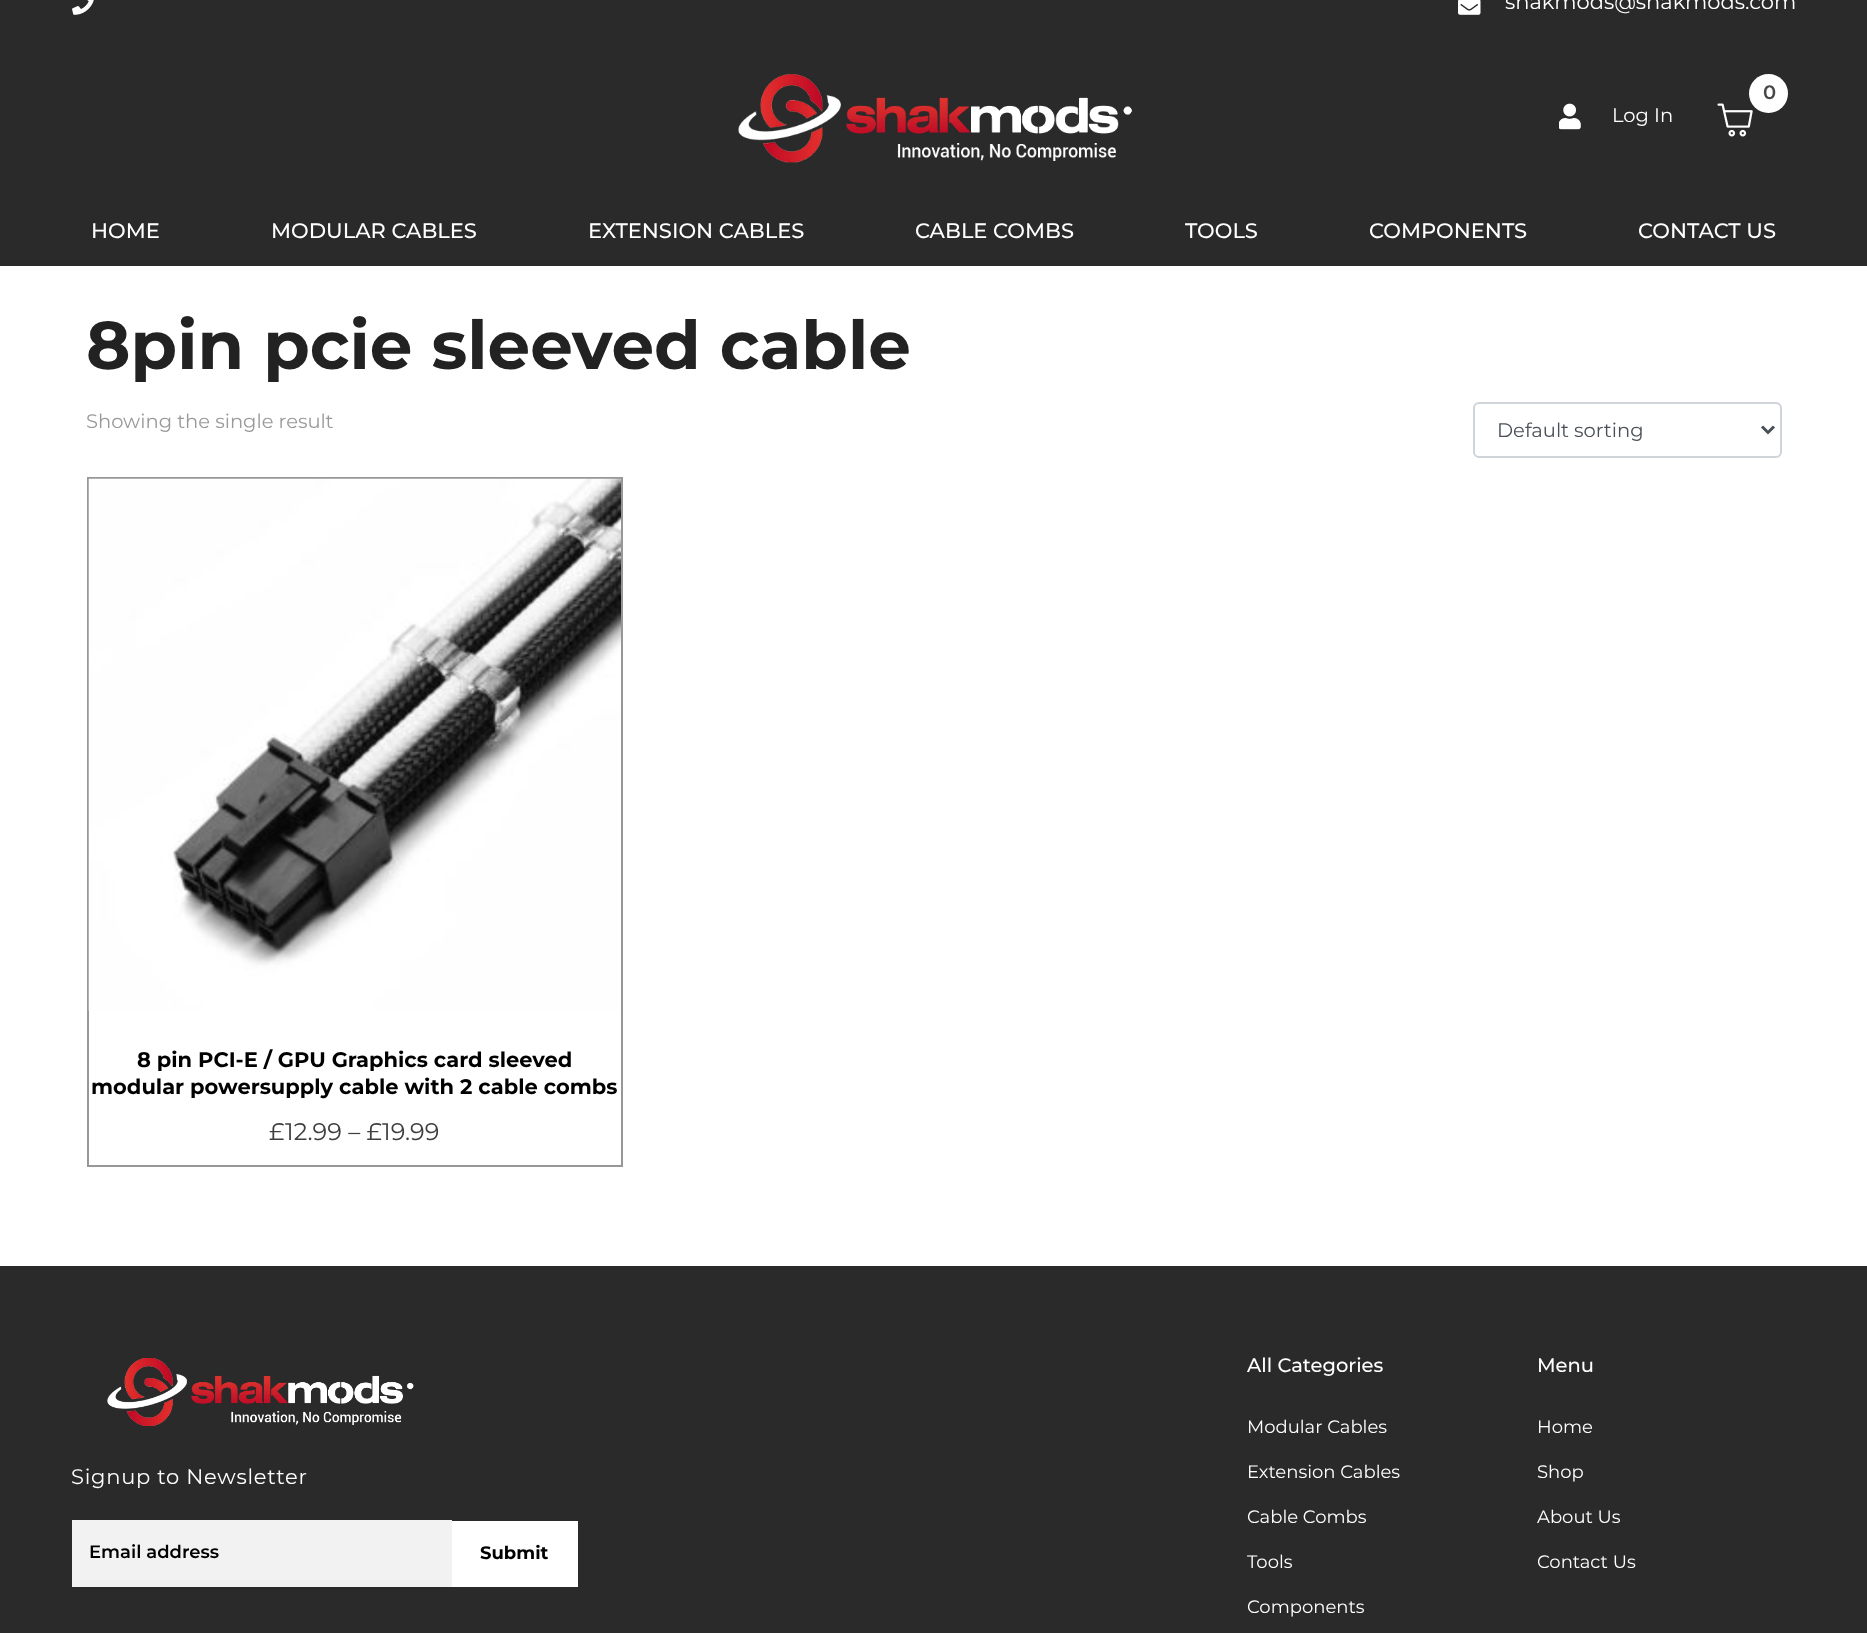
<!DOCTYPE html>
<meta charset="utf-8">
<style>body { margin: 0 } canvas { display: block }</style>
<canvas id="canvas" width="1867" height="1633"></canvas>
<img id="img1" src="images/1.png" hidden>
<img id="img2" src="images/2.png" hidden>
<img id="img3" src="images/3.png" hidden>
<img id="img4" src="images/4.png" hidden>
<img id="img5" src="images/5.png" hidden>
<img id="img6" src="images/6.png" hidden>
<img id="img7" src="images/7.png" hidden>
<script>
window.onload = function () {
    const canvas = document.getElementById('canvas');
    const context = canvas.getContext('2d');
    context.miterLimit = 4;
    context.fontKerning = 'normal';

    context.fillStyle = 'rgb(255, 255, 255)';
    context.fillRect(0, 0, 1867, 1633);
    context.fillStyle = 'rgb(42, 42, 42)';
    context.fillRect(0, 0, 1867, 266);
    context.drawImage(document.getElementById('img1'), 72, 0, 22, 15);
    context.drawImage(document.getElementById('img2'), 1458, 0, 23, 15);
    context.drawImage(document.getElementById('img3'), 738, 74, 394, 89);
    context.drawImage(document.getElementById('img4'), 1717, 103, 36, 34);
    context.fillStyle = 'rgb(255, 255, 255)';
    context.beginPath();
    context.arc(1768.5, 93.5, 19.5, 0, 2 * Math.PI);
    context.fill();
    context.drawImage(document.getElementById('img5'), 1559, 103, 22, 27);
    context.beginPath();
    context.roundRect(1474, 403, 307, 54, 5);
    context.strokeStyle = 'rgb(206, 212, 218)';
    context.lineWidth = 2;
    context.stroke();
    context.beginPath();
    context.moveTo(1762, 426.5);
    context.lineTo(1768, 432.5);
    context.lineTo(1774, 426.5);
    context.strokeStyle = 'rgb(73, 80, 87)';
    context.lineWidth = 3;
    context.stroke();
    context.strokeStyle = 'rgb(151, 151, 151)';
    context.lineWidth = 2;
    context.strokeRect(88, 478, 534, 688);
    context.drawImage(document.getElementById('img6'), 88, 478, 533, 533);
    context.fillStyle = 'rgb(42, 42, 42)';
    context.fillRect(0, 1266, 1867, 367);
    context.drawImage(document.getElementById('img7'), 107, 1358, 307, 68);
    context.fillStyle = 'rgb(242, 242, 242)';
    context.fillRect(72, 1520, 380, 67);
    context.fillStyle = 'rgb(255, 255, 255)';
    context.fillRect(452, 1521, 126, 66);
    context.font = '21px Montserrat';
    context.fillText('shakmods@shakmods.com', 1505, 9);
    context.font = '600 19.5px Montserrat';
    context.fillStyle = 'rgb(72, 72, 72)';
    context.fillText('0', 1763, 99);
    context.font = '19.5px Montserrat';
    context.fillStyle = 'rgb(255, 255, 255)';
    context.fillText('Log In', 1612, 122);
    context.font = '500 21px Montserrat';
    context.fillText('HOME', 91, 238);
    context.fillText('MODULAR CABLES', 271, 238);
    context.fillText('EXTENSION CABLES', 588, 238);
    context.fillText('CABLE COMBS', 915, 238);
    context.fillText('TOOLS', 1185, 238);
    context.fillText('COMPONENTS', 1369, 238);
    context.fillText('CONTACT US', 1638, 238);
    context.font = 'bold 67.5px Montserrat';
    context.fillStyle = 'rgb(34, 34, 34)';
    context.fillText('8pin pcie sleeved cable', 86, 369);
    context.font = '19.5px Montserrat';
    context.fillStyle = 'rgb(153, 153, 153)';
    context.fillText('Showing the single result', 86, 428);
    context.fillStyle = 'rgb(73, 80, 87)';
    context.fillText('Default sorting', 1497, 437);
    context.font = 'bold 21px Montserrat';
    context.fillStyle = 'rgb(0, 0, 0)';
    context.fillText('8 pin PCI-E / GPU Graphics card sleeved', 137, 1067);
    context.fillText('modular powersupply cable with 2 cable combs', 91, 1094);
    context.font = '24px Montserrat';
    context.fillStyle = 'rgb(63, 63, 63)';
    context.fillText('£', 269, 1140);
    context.fillText('12.99 – £', 285, 1140);
    context.fillText('19.99', 382, 1140);
    context.letterSpacing = '0.75px';
    context.font = '21px Montserrat';
    context.fillStyle = 'rgb(255, 255, 255)';
    context.fillText('Signup to Newsletter', 71, 1484);
    context.letterSpacing = '0px';
    context.font = '600 18px Montserrat';
    context.fillStyle = 'rgb(0, 0, 0)';
    context.fillText('Email address', 89, 1558);
    context.font = 'bold 18px Montserrat';
    context.fillText('Submit', 480, 1559);
    context.font = '500 19.5px Montserrat';
    context.fillStyle = 'rgb(255, 255, 255)';
    context.fillText('All Categories', 1247, 1372);
    context.font = '18px Montserrat';
    context.fillText('Modular Cables', 1247, 1433);
    context.fillText('Extension Cables', 1247, 1478);
    context.fillText('Cable Combs', 1247, 1523);
    context.fillText('Tools', 1247, 1568);
    context.fillText('Components', 1247, 1613);
    context.font = '500 19.5px Montserrat';
    context.fillText('Menu', 1537, 1372);
    context.font = '18px Montserrat';
    context.fillText('Home', 1537, 1433);
    context.fillText('Shop', 1537, 1478);
    context.fillText('About Us', 1537, 1523);
    context.fillText('Contact Us', 1537, 1568);
};
</script>
